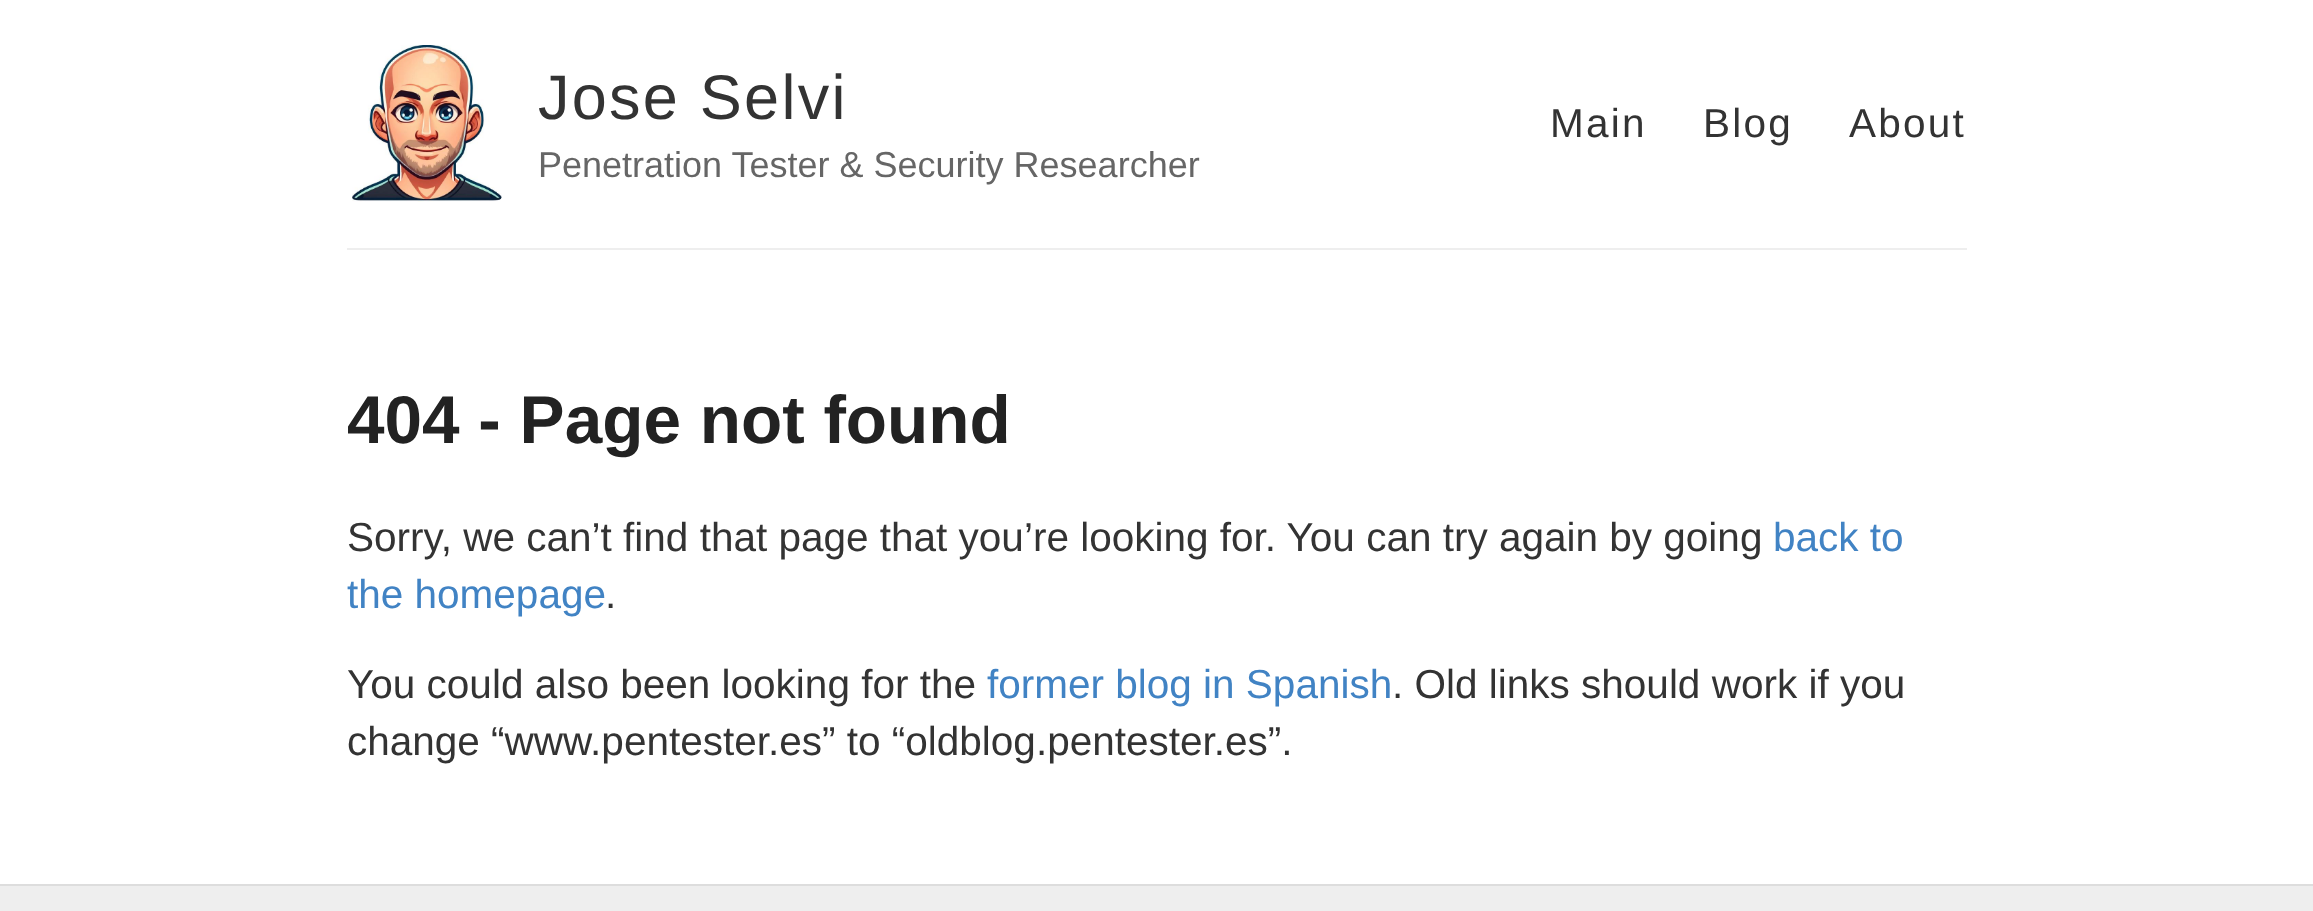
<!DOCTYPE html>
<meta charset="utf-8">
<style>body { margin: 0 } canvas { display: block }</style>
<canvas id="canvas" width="2313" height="911"></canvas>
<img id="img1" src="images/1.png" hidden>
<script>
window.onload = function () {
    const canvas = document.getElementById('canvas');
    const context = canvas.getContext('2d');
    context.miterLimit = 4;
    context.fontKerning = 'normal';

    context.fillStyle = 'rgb(255, 255, 255)';
    context.fillRect(0, 0, 2313, 911);
    context.fillStyle = 'rgb(238, 238, 238)';
    context.fillRect(347, 248, 1620, 2);
    context.drawImage(document.getElementById('img1'), 352, 45, 150, 157);
    context.fillRect(0, 886, 2313, 25);
    context.fillStyle = 'rgb(221, 221, 221)';
    context.fillRect(0, 884, 2313, 2);
    context.letterSpacing = '2.25px';
    context.font = '63px Liberation Sans';
    context.fillStyle = 'rgb(51, 51, 51)';
    context.fillText('Jose Selvi', 538, 119);
    context.letterSpacing = '0px';
    context.font = '36px Liberation Sans';
    context.fillStyle = 'rgb(102, 102, 102)';
    context.fillText('Penetration Tester & Security Researcher', 538, 177);
    context.letterSpacing = '2.25px';
    context.font = '40.5px Liberation Sans';
    context.fillStyle = 'rgb(51, 51, 51)';
    context.fillText('Main', 1550, 137);
    context.fillText('Blog', 1703, 137);
    context.fillText('About', 1849, 137);
    context.letterSpacing = '0px';
    context.font = 'bold 67.5px Liberation Sans';
    context.fillStyle = 'rgb(34, 34, 34)';
    context.fillText('404 - Page not found', 347, 443);
    context.font = '40.5px Liberation Sans';
    context.fillStyle = 'rgb(51, 51, 51)';
    context.fillText('Sorry, we can’t find that page that you’re looking for. You can try again by going', 347, 551);
    context.fillStyle = 'rgb(65, 131, 196)';
    context.fillText('back to', 1773, 551);
    context.fillText('the homepage', 347, 608);
    context.fillStyle = 'rgb(51, 51, 51)';
    context.fillText('.', 605, 608);
    context.fillText('You could also been looking for the', 347, 698);
    context.fillStyle = 'rgb(65, 131, 196)';
    context.fillText('former blog in Spanish', 987, 698);
    context.fillStyle = 'rgb(51, 51, 51)';
    context.fillText('. Old links should work if you', 1392, 698);
    context.fillText('change “www.pentester.es” to “oldblog.pentester.es”.', 347, 755);
};
</script>
